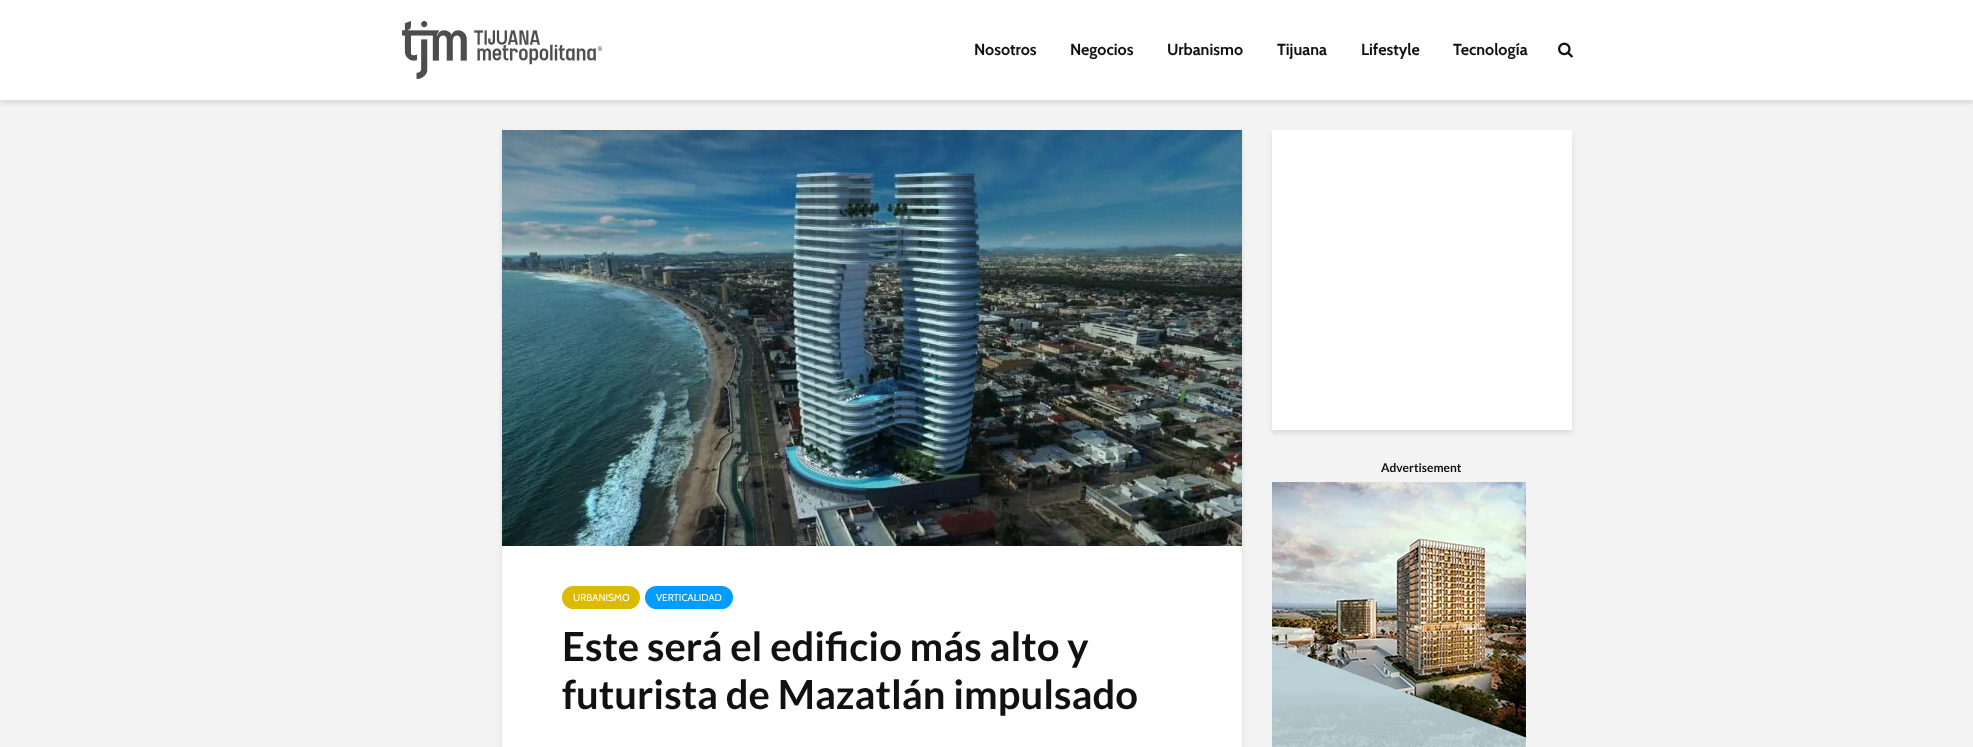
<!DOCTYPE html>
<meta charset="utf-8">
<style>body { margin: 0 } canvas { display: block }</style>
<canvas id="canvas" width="1973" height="747"></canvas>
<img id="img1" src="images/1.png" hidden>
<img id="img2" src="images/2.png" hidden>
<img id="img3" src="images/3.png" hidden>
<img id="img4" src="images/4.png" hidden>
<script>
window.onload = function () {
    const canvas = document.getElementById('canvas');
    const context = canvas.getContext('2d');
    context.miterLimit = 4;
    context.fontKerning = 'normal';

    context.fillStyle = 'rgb(243, 243, 243)';
    context.fillRect(0, 0, 1973, 747);
    context.fillStyle = 'rgba(0, 1, 1, 0.1)';
    context.filter = 'blur(2.5px)';
    context.beginPath();
    context.rect(0, 3, 1973, 100);
    context.fill();
    context.filter = 'none';
    context.fillStyle = 'rgb(255, 255, 255)';
    context.fillRect(0, 0, 1973, 100);
    context.drawImage(document.getElementById('img1'), 402, 20, 200, 60);
    context.drawImage(document.getElementById('img2'), 1558, 42, 15, 16);
    context.fillStyle = 'rgba(0, 1, 1, 0.1)';
    context.filter = 'blur(2.5px)';
    context.beginPath();
    context.rect(1272, 133, 300, 300);
    context.fill();
    context.filter = 'none';
    context.fillStyle = 'rgb(255, 255, 255)';
    context.fillRect(1272, 130, 300, 300);
    context.drawImage(document.getElementById('img3'), 1272, 482, 254, 265);
    context.fillStyle = 'rgba(0, 1, 1, 0.1)';
    context.filter = 'blur(2.5px)';
    context.beginPath();
    context.rect(502, 133, 740, 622);
    context.fill();
    context.filter = 'none';
    context.fillStyle = 'rgb(255, 255, 255)';
    context.fillRect(502, 546, 740, 201);
    context.drawImage(document.getElementById('img4'), 502, 130, 740, 416);
    context.fillStyle = 'rgb(219, 186, 0)';
    context.beginPath();
    context.roundRect(562, 586, 78, 23, 11.5);
    context.fill();
    context.fillStyle = 'rgb(0, 156, 255)';
    context.beginPath();
    context.roundRect(645, 586, 88, 23, 11.5);
    context.fill();
    context.font = 'bold 16px Cabin';
    context.fillStyle = 'rgb(17, 17, 17)';
    context.fillText('Nosotros', 974, 55);
    context.fillText('Negocios', 1070, 55);
    context.fillText('Urbanismo', 1167, 55);
    context.fillText('Tijuana', 1277, 55);
    context.fillText('Lifestyle', 1361, 55);
    context.fillText('Tecnología', 1453, 55);
    context.font = 'bold 12px Lato';
    context.fillText('Advertisement', 1381, 472);
    context.font = '10px Cabin';
    context.fillStyle = 'rgb(255, 255, 255)';
    context.fillText('URBANISMO', 573, 601);
    context.fillText('VERTICALIDAD', 656, 601);
    context.font = 'bold 40px Lato';
    context.fillStyle = 'rgb(17, 17, 17)';
    context.fillText('Este será el edificio más alto y', 562, 661);
    context.fillText('futurista de Mazatlán impulsado', 562, 709);
};
</script>
